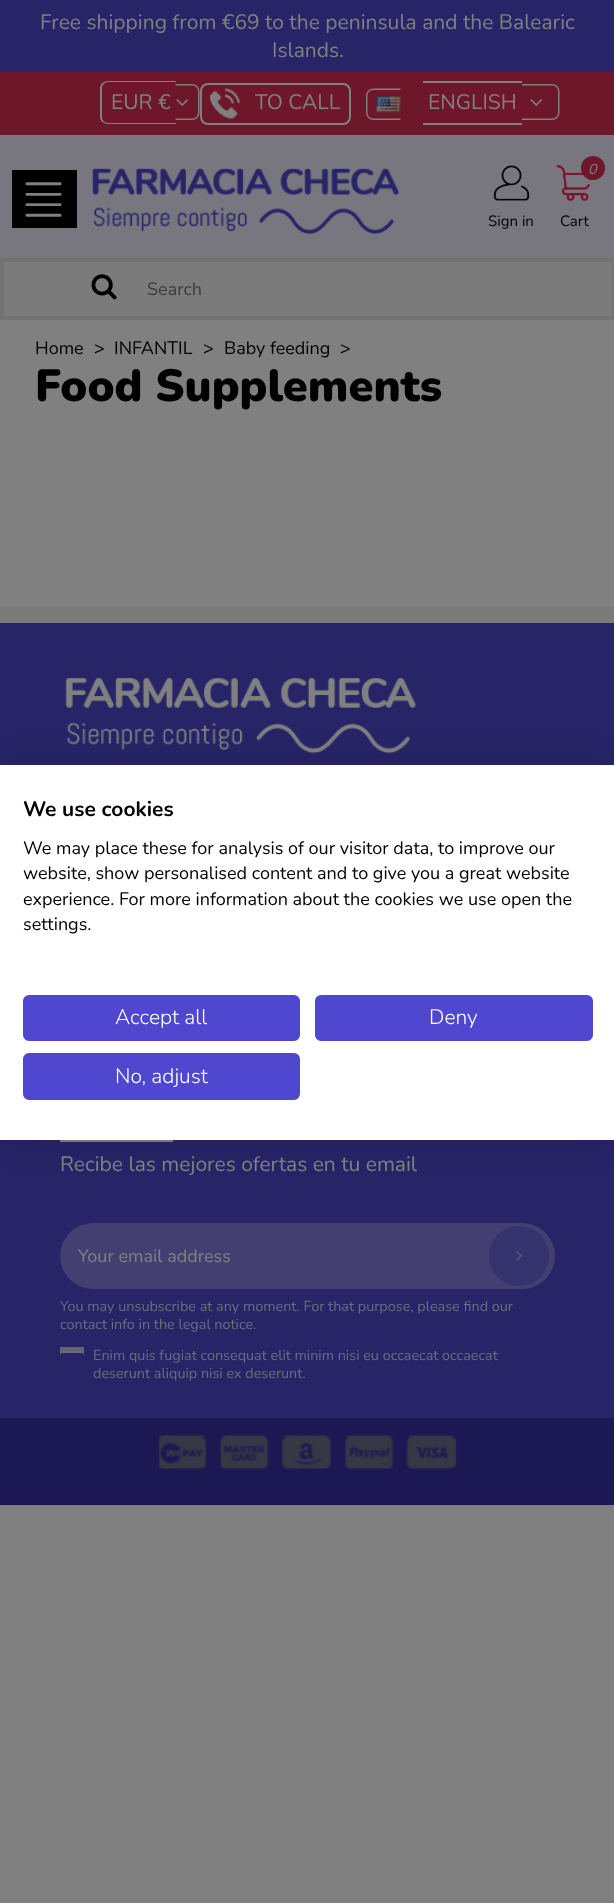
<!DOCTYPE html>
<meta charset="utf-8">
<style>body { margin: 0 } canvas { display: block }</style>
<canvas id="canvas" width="614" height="1903"></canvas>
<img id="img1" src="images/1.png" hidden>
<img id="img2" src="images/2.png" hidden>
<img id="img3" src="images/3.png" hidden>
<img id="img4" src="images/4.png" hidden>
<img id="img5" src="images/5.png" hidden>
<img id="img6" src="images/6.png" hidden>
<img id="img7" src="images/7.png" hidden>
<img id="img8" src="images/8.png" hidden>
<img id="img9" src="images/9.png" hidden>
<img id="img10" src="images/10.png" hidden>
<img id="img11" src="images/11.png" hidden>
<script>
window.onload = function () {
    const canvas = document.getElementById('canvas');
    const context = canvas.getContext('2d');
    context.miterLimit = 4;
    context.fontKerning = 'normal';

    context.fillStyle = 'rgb(128, 128, 128)';
    context.fillRect(0, 0, 614, 1903);
    context.fillStyle = 'rgb(39, 36, 104)';
    context.fillRect(0, 0, 614, 72);
    context.fillStyle = 'rgb(110, 23, 43)';
    context.fillRect(0, 72, 614, 63);
    context.fillStyle = 'rgb(128, 128, 128)';
    context.beginPath();
    context.moveTo(108, 81);
    context.lineTo(176, 81);
    context.lineTo(176, 124);
    context.lineTo(108, 124);
    context.bezierCurveTo(104, 124, 100, 121, 100, 117);
    context.lineTo(100, 88);
    context.bezierCurveTo(100, 84, 104, 81, 108, 81);
    context.closePath();
    context.moveTo(108, 82);
    context.lineTo(176, 82);
    context.lineTo(176, 123);
    context.lineTo(108, 123);
    context.bezierCurveTo(105, 123, 102, 120, 102, 117);
    context.lineTo(102, 88);
    context.bezierCurveTo(102, 85, 105, 82, 108, 82);
    context.closePath();
    context.fill('evenodd');
    context.beginPath();
    context.moveTo(175.5, 84);
    context.lineTo(192, 84);
    context.bezierCurveTo(196, 84, 199.5, 87.5, 199.5, 91.5);
    context.lineTo(199.5, 112.5);
    context.bezierCurveTo(199.5, 116.5, 196, 120, 192, 120);
    context.lineTo(175.5, 120);
    context.closePath();
    context.moveTo(175.5, 85.5);
    context.lineTo(192, 85.5);
    context.bezierCurveTo(195.5, 85.5, 198, 88, 198, 91.5);
    context.lineTo(198, 112.5);
    context.bezierCurveTo(198, 116, 195.5, 118.5, 192, 118.5);
    context.lineTo(175.5, 118.5);
    context.closePath();
    context.fill('evenodd');
    context.drawImage(document.getElementById('img1'), 176, 99, 12, 7);
    context.beginPath();
    context.roundRect(201, 84, 149, 40, 7);
    context.strokeStyle = 'rgb(128, 128, 128)';
    context.lineWidth = 2;
    context.stroke();
    context.drawImage(document.getElementById('img2'), 210, 88, 30, 31);
    context.beginPath();
    context.moveTo(373.5, 88.5);
    context.lineTo(400.5, 88.5);
    context.lineTo(400.5, 120);
    context.lineTo(373.5, 120);
    context.bezierCurveTo(369.5, 120, 366, 116.5, 366, 112.5);
    context.lineTo(366, 96);
    context.bezierCurveTo(366, 92, 369.5, 88.5, 373.5, 88.5);
    context.closePath();
    context.moveTo(373.5, 90);
    context.lineTo(400.5, 90);
    context.lineTo(400.5, 118.5);
    context.lineTo(373.5, 118.5);
    context.bezierCurveTo(370, 118.5, 367.5, 116, 367.5, 112.5);
    context.lineTo(367.5, 96);
    context.bezierCurveTo(367.5, 92.5, 370, 90, 373.5, 90);
    context.closePath();
    context.fill('evenodd');
    context.fillRect(423, 81, 99, 2);
    context.fillRect(423, 123, 99, 2);
    context.beginPath();
    context.moveTo(522, 84);
    context.lineTo(552, 84);
    context.bezierCurveTo(556, 84, 559.5, 87.5, 559.5, 91.5);
    context.lineTo(559.5, 112.5);
    context.bezierCurveTo(559.5, 116.5, 556, 120, 552, 120);
    context.lineTo(522, 120);
    context.closePath();
    context.moveTo(522, 85.5);
    context.lineTo(552, 85.5);
    context.bezierCurveTo(555.5, 85.5, 558, 88, 558, 91.5);
    context.lineTo(558, 112.5);
    context.bezierCurveTo(558, 116, 555.5, 118.5, 552, 118.5);
    context.lineTo(522, 118.5);
    context.closePath();
    context.fill('evenodd');
    context.drawImage(document.getElementById('img3'), 376, 96, 25, 17);
    context.drawImage(document.getElementById('img1'), 530, 99, 12, 7);
    context.fillStyle = 'rgb(120, 119, 128)';
    context.fillRect(0, 135, 614, 123);
    context.fillStyle = 'rgb(0, 0, 0)';
    context.fillRect(12, 170, 65, 58);
    context.drawImage(document.getElementById('img4'), 25, 182, 37, 35);
    context.drawImage(document.getElementById('img5'), 92, 168, 307, 66);
    context.drawImage(document.getElementById('img6'), 493, 165, 37, 36);
    context.drawImage(document.getElementById('img7'), 556, 165, 36, 36);
    context.fillStyle = 'rgb(110, 23, 43)';
    context.beginPath();
    context.arc(593, 168, 12, 0, 2 * Math.PI);
    context.fill();
    context.strokeStyle = 'rgb(114, 114, 114)';
    context.strokeRect(1, 259, 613, 60);
    context.fillStyle = 'rgb(123, 123, 123)';
    context.beginPath();
    context.rect(3, 261, 610, 56);
    context.fill();
    context.stroke();
    context.drawImage(document.getElementById('img8'), 91, 274, 26, 26);
    context.fillRect(0, 606, 614, 17);
    context.fillStyle = 'rgb(39, 36, 104)';
    context.fillRect(0, 623, 614, 795);
    context.drawImage(document.getElementById('img9'), 65, 678, 351, 76);
    context.fillStyle = 'rgb(128, 128, 128)';
    context.fillRect(60, 1140, 113, 2);
    context.fillStyle = 'rgb(67, 64, 113)';
    context.beginPath();
    context.roundRect(60, 1223, 495, 66, 33);
    context.fill();
    context.fillStyle = 'rgb(53, 50, 109)';
    context.beginPath();
    context.arc(519, 1256, 30, 0, 2 * Math.PI);
    context.fill();
    context.drawImage(document.getElementById('img10'), 516, 1250, 6, 11);
    context.fillStyle = 'rgb(110, 109, 123)';
    context.fillRect(62, 1351, 20, 3);
    context.fillStyle = 'rgb(101, 100, 114)';
    context.fillRect(62, 1349, 21, 2);
    context.strokeStyle = 'rgb(99, 98, 112)';
    context.strokeRect(61, 1348, 22, 22);
    context.fillStyle = 'rgb(39, 36, 104)';
    context.beginPath();
    context.roundRect(61, 1354, 22, 22, 2);
    context.fill();
    context.strokeStyle = 'rgb(39, 36, 104)';
    context.stroke();
    context.fillStyle = 'rgb(27, 24, 83)';
    context.fillRect(0, 1418, 614, 87);
    context.drawImage(document.getElementById('img11'), 158, 1435, 299, 34);
    context.fillStyle = 'rgba(0, 0, 0, 0.1)';
    context.filter = 'blur(18px)';
    context.beginPath();
    context.rect(0, 765, 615, 375);
    context.fill();
    context.filter = 'none';
    context.fillStyle = 'rgb(255, 255, 255)';
    context.fillRect(0, 765, 614, 375);
    context.fillStyle = 'rgb(79, 71, 208)';
    context.beginPath();
    context.roundRect(24, 996, 275, 44, 5);
    context.fill();
    context.strokeStyle = 'rgb(79, 71, 208)';
    context.stroke();
    context.beginPath();
    context.roundRect(316, 996, 276, 44, 5);
    context.fill();
    context.stroke();
    context.beginPath();
    context.roundRect(24, 1054, 275, 45, 5);
    context.fill();
    context.stroke();
    context.font = '21px Nunito';
    context.fillStyle = 'rgb(128, 128, 128)';
    context.fillText('Free shipping from €69 to the peninsula and the Balearic', 40, 29);
    context.fillText('Islands.', 272, 57);
    context.fillText('EUR €', 111, 109);
    context.fillText('TO CALL', 255, 109);
    context.fillText('ENGLISH', 428, 109);
    context.font = '15px Nunito';
    context.fillStyle = 'rgb(0, 0, 0)';
    context.fillText('Sign in', 488, 226);
    context.font = 'italic 14.4px Nunito';
    context.fillStyle = 'rgb(128, 128, 128)';
    context.fillText('0', 588, 174);
    context.font = '15px Nunito';
    context.fillStyle = 'rgb(0, 0, 0)';
    context.fillText('Cart', 560, 226);
    context.font = '18px Nunito';
    context.fillStyle = 'rgb(60, 60, 60)';
    context.fillText('Search', 147, 295);
    context.fillStyle = 'rgb(0, 0, 0)';
    context.fillText('Home', 35, 354);
    context.fillText('>', 94, 354);
    context.fillText('INFANTIL', 114, 354);
    context.fillText('>', 203, 354);
    context.fillText('Baby feeding', 224, 354);
    context.fillText('>', 340, 354);
    context.font = '900 45px Nunito';
    context.fillText('Food Supplements', 35, 401);
    context.font = '21px Nunito';
    context.fillStyle = 'rgb(128, 128, 128)';
    context.fillText('Recibe las mejores ofertas en tu email', 60, 1171);
    context.font = '18px Nunito';
    context.fillText('Your email address', 78, 1262);
    context.font = '14.4px Nunito';
    context.fillStyle = 'rgb(110, 109, 123)';
    context.fillText('You may unsubscribe at any moment. For that purpose, please find our', 60, 1311);
    context.fillText('contact info in the legal notice.', 60, 1329);
    context.fillText('Enim quis fugiat consequat elit minim nisi eu occaecat occaecat', 93, 1360);
    context.fillText('deserunt aliquip nisi ex deserunt.', 93, 1378);
    context.font = 'bold 21px Nunito';
    context.fillStyle = 'rgb(0, 0, 0)';
    context.fillText('We use cookies', 23, 816);
    context.font = '18px Nunito';
    context.fillText('We may place these for analysis of our visitor data, to improve our', 23, 854);
    context.fillText('website, show personalised content and to give you a great website', 23, 879);
    context.fillText('experience. For more information about the cookies we use open the', 23, 905);
    context.fillText('settings.', 23, 930);
    context.font = '300 21px Nunito';
    context.fillStyle = 'rgb(255, 255, 255)';
    context.fillText('Accept all', 115, 1024);
    context.fillText('Deny', 429, 1024);
    context.fillText('No, adjust', 115, 1083);
};
</script>
